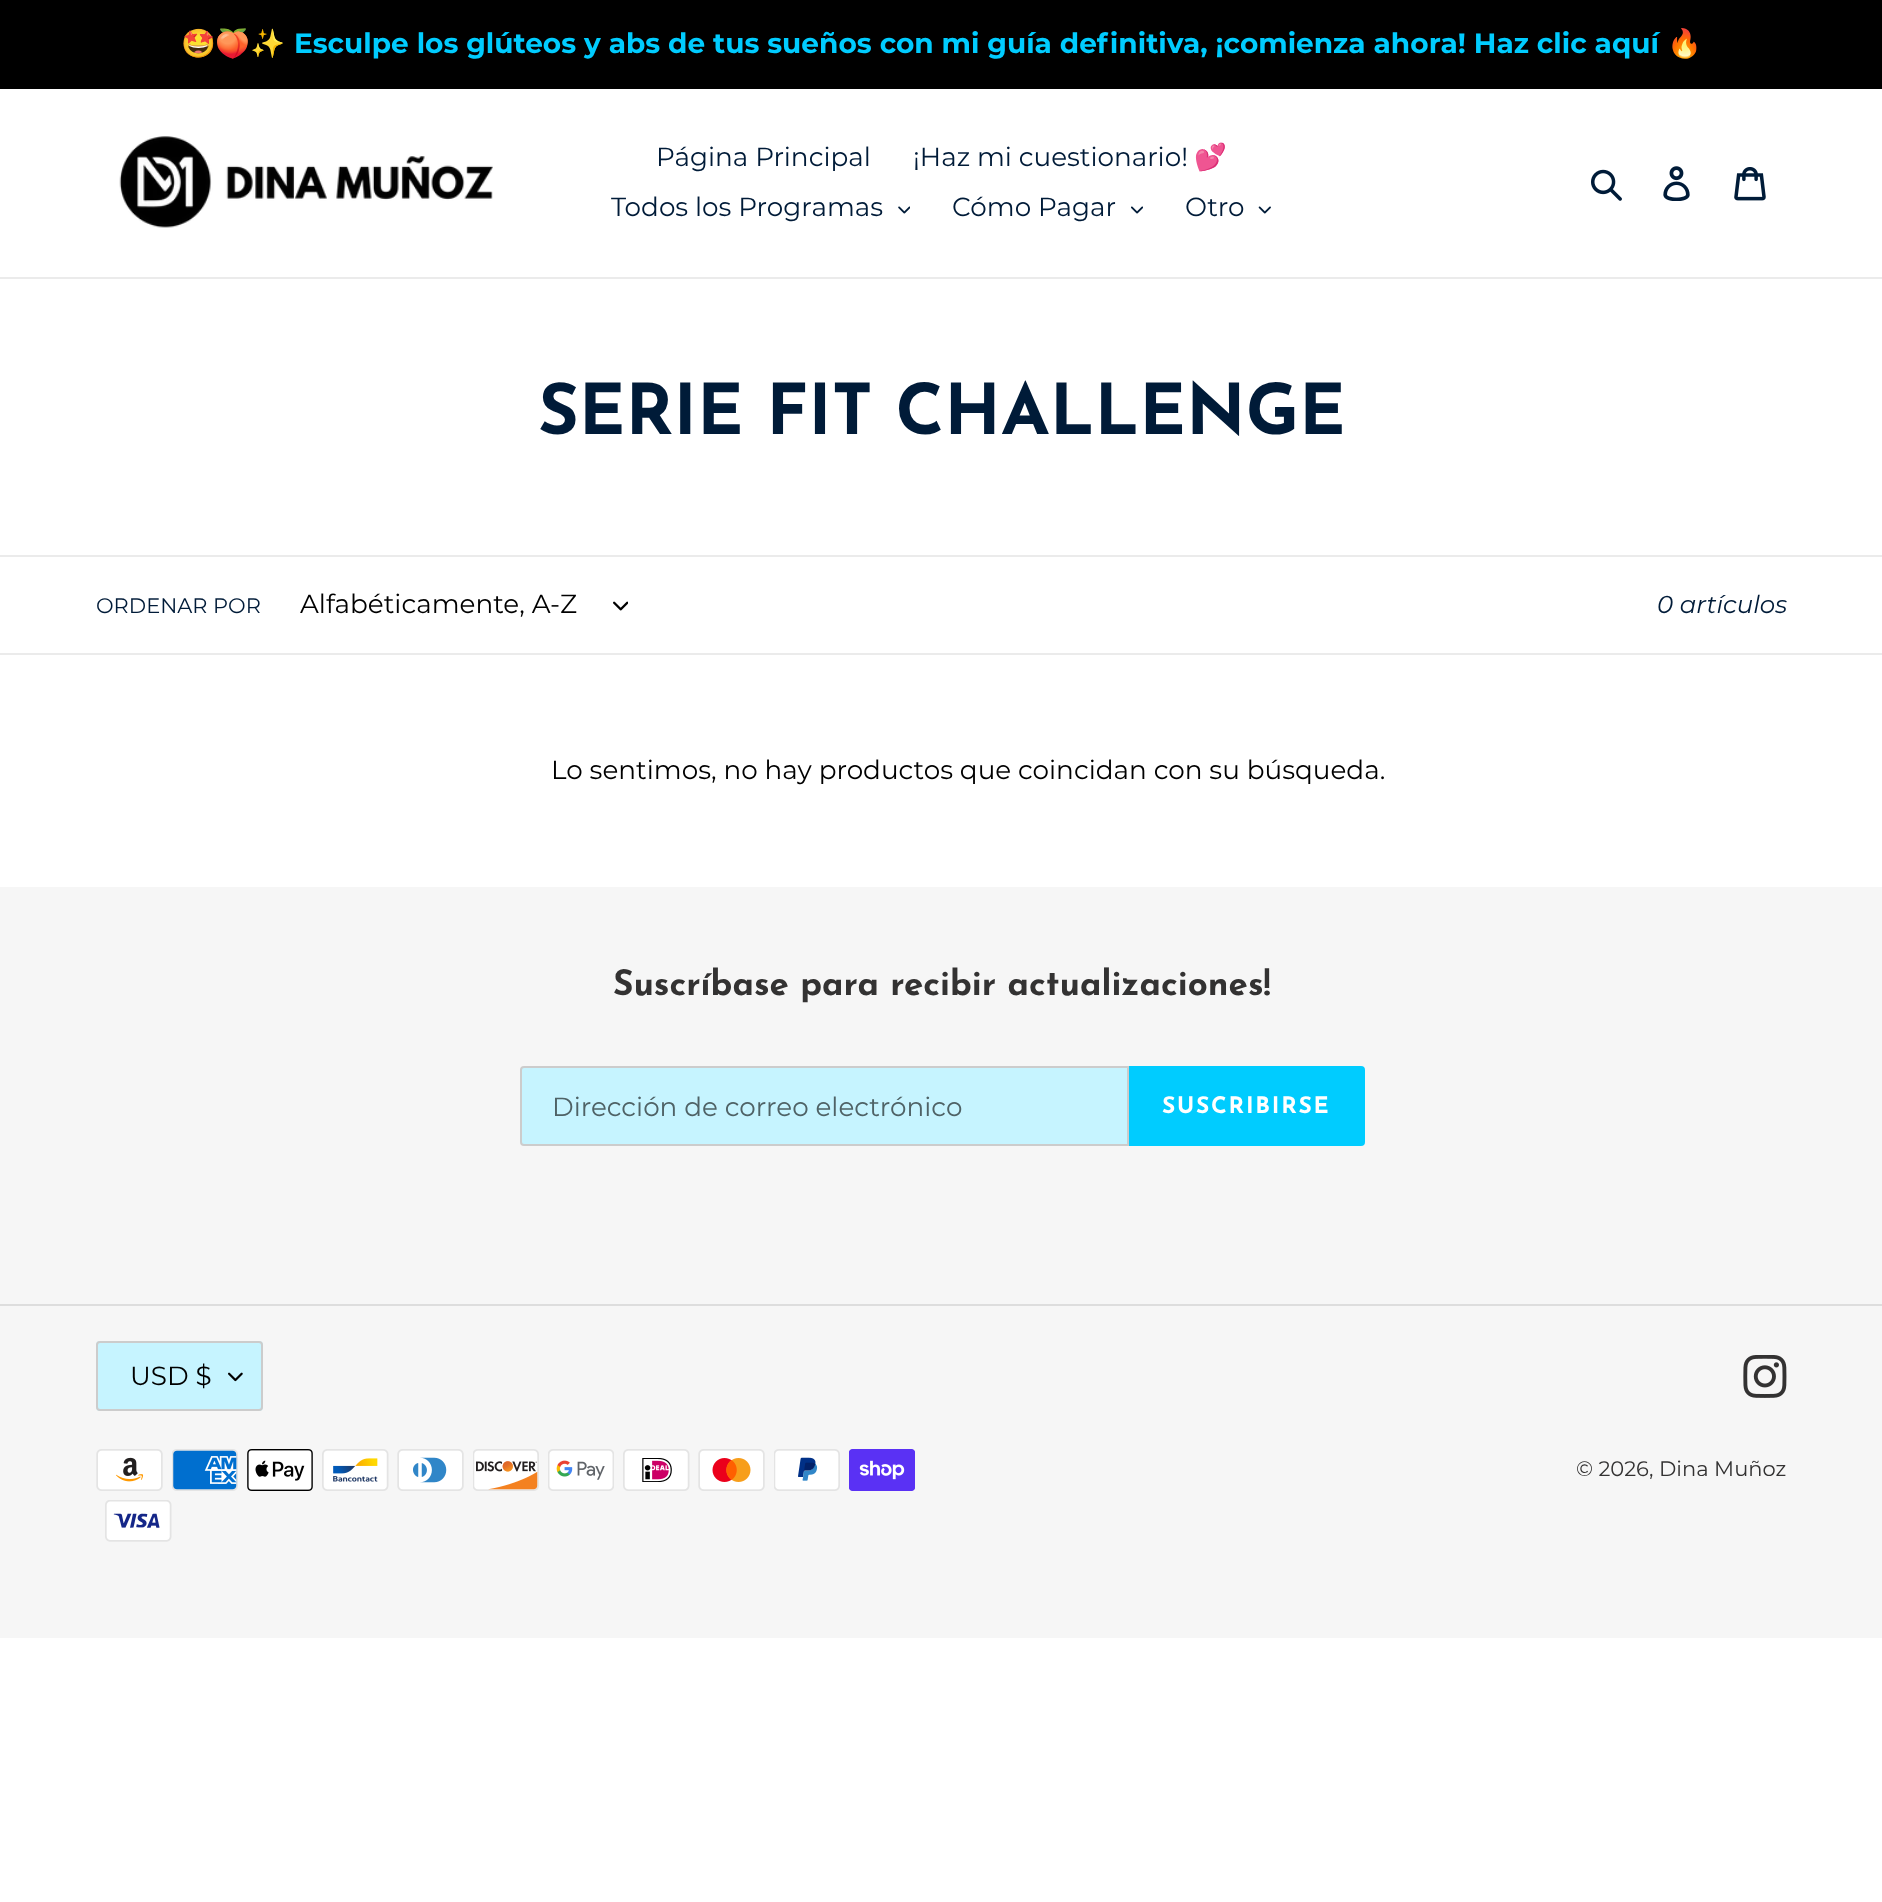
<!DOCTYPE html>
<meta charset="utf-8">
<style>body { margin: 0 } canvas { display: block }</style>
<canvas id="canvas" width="1882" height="1902"></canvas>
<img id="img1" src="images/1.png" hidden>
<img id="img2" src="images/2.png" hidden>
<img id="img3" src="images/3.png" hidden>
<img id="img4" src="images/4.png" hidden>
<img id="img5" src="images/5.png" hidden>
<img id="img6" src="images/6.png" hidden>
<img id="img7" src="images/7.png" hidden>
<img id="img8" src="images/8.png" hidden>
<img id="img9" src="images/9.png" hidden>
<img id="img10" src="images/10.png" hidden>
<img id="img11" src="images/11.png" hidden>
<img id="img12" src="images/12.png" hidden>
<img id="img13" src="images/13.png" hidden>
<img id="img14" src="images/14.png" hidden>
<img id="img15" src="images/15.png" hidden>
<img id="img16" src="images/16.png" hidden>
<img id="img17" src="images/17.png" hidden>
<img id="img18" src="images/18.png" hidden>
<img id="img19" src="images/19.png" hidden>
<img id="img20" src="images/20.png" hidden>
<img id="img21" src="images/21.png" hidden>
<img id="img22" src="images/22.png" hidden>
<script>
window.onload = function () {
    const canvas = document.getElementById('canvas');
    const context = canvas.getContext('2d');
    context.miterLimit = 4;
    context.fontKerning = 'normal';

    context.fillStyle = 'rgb(255, 255, 255)';
    context.fillRect(0, 0, 1882, 1902);
    context.fillStyle = 'rgb(0, 0, 0)';
    context.fillRect(0, 0, 1882, 89);
    context.fillStyle = 'rgb(235, 235, 235)';
    context.fillRect(0, 277, 1882, 2);
    context.drawImage(document.getElementById('img1'), 119, 136, 374, 92);
    context.drawImage(document.getElementById('img2'), 898, 206, 12, 8);
    context.drawImage(document.getElementById('img3'), 1131, 206, 12, 8);
    context.drawImage(document.getElementById('img4'), 1258, 206, 13, 8);
    context.drawImage(document.getElementById('img5'), 1591, 169, 31, 32);
    context.drawImage(document.getElementById('img6'), 1663, 166, 27, 35);
    context.drawImage(document.getElementById('img7'), 1734, 167, 32, 34);
    context.fillRect(0, 555, 1882, 2);
    context.fillRect(0, 653, 1882, 2);
    context.drawImage(document.getElementById('img8'), 613, 601, 15, 10);
    context.fillStyle = 'rgb(246, 246, 246)';
    context.fillRect(0, 887, 1882, 751);
    context.fillStyle = 'rgb(198, 244, 255)';
    context.beginPath();
    context.roundRect(521, 1067, 607, 78, [3, 0, 0, 3]);
    context.fill();
    context.strokeStyle = 'rgb(204, 204, 204)';
    context.lineWidth = 2;
    context.stroke();
    context.fillStyle = 'rgb(0, 204, 255)';
    context.beginPath();
    context.roundRect(1129, 1066, 236, 80, [0, 4, 4, 0]);
    context.fill();
    context.fillStyle = 'rgb(221, 221, 221)';
    context.fillRect(0, 1304, 1882, 2);
    context.fillStyle = 'rgb(198, 244, 255)';
    context.beginPath();
    context.roundRect(96, 1341, 167, 70, 4);
    context.fill();
    context.drawImage(document.getElementById('img9'), 228, 1372, 15, 10);
    context.beginPath();
    context.roundRect(97, 1342, 165, 68, 3);
    context.stroke();
    context.drawImage(document.getElementById('img10'), 1743, 1355, 44, 43);
    context.drawImage(document.getElementById('img11'), 96, 1449, 67, 42);
    context.drawImage(document.getElementById('img12'), 172, 1449, 66, 42);
    context.drawImage(document.getElementById('img13'), 247, 1449, 66, 42);
    context.drawImage(document.getElementById('img14'), 322, 1449, 67, 42);
    context.drawImage(document.getElementById('img15'), 397, 1449, 67, 42);
    context.drawImage(document.getElementById('img16'), 473, 1449, 66, 42);
    context.drawImage(document.getElementById('img17'), 548, 1449, 66, 42);
    context.drawImage(document.getElementById('img18'), 623, 1449, 67, 42);
    context.drawImage(document.getElementById('img19'), 698, 1449, 67, 42);
    context.drawImage(document.getElementById('img20'), 774, 1449, 66, 42);
    context.drawImage(document.getElementById('img21'), 849, 1449, 66, 42);
    context.drawImage(document.getElementById('img22'), 105, 1500, 67, 42);
    context.font = 'bold 28px Noto Color Emoji';
    context.fillStyle = 'rgb(0, 204, 255)';
    context.fillText('🤩🍑✨', 181, 53);
    context.font = 'bold 28px Montserrat';
    context.fillText('Esculpe los glúteos y abs de tus sueños con mi guía definitiva, ¡comienza ahora! Haz clic aquí', 294, 53);
    context.font = 'bold 28px Noto Color Emoji';
    context.fillText('🔥', 1667, 53);
    context.font = '26.25px Montserrat';
    context.fillStyle = 'rgb(0, 27, 56)';
    context.fillText('Página Principal', 656, 166);
    context.fillText('¡Haz mi cuestionario!', 913, 166);
    context.font = '26.25px Noto Color Emoji';
    context.fillText('💕', 1194, 166);
    context.font = '26.25px Montserrat';
    context.fillText('Todos los Programas', 611, 216);
    context.fillText('Cómo Pagar', 952, 216);
    context.fillText('Otro', 1185, 216);
    context.font = 'bold 70px Josefin Sans';
    context.fillText('SERIE FIT CHALLENGE', 538, 434);
    context.font = '21px Montserrat';
    context.fillText('ORDENAR POR', 96, 613);
    context.font = '26.25px Montserrat';
    context.fillStyle = 'rgb(0, 0, 0)';
    context.fillText('Alfabéticamente, A-Z', 300, 613);
    context.font = 'italic 24.5px Montserrat';
    context.fillStyle = 'rgb(0, 27, 56)';
    context.fillText('0 artículos', 1657, 613);
    context.font = '26.25px Montserrat';
    context.fillStyle = 'rgb(0, 0, 0)';
    context.fillText('Lo sentimos, no hay productos que coincidan con su búsqueda.', 551, 779);
    context.font = 'bold 35px Josefin Sans';
    context.fillStyle = 'rgb(51, 50, 50)';
    context.fillText('Suscríbase para recibir actualizaciones!', 613, 995);
    context.font = '26.25px Montserrat';
    context.fillStyle = 'rgb(79, 98, 102)';
    context.fillText('Dirección de correo electrónico', 552, 1116);
    context.letterSpacing = '1.75px';
    context.font = 'bold 22.75px Josefin Sans';
    context.fillStyle = 'rgb(255, 255, 255)';
    context.fillText('SUSCRIBIRSE', 1162, 1113);
    context.letterSpacing = '0px';
    context.font = '26.25px Montserrat';
    context.fillStyle = 'rgb(0, 0, 0)';
    context.fillText('USD $', 130, 1385);
    context.font = '21px Montserrat';
    context.fillStyle = 'rgb(51, 50, 50)';
    context.fillText('© 2026, Dina Muñoz', 1576, 1476);
};
</script>
